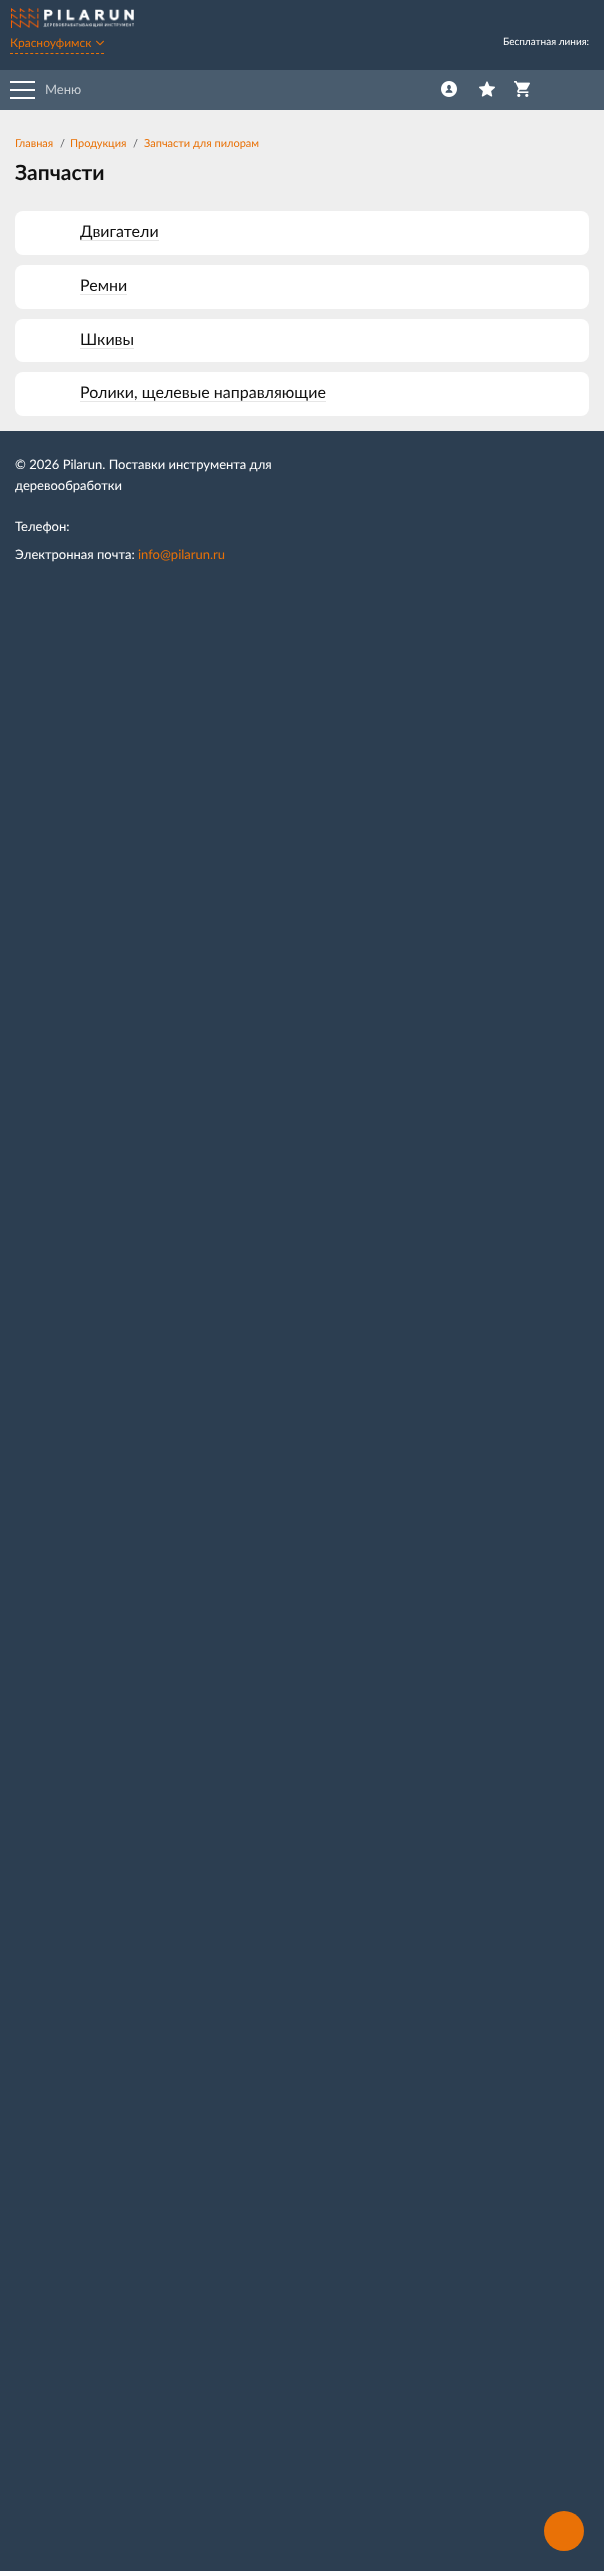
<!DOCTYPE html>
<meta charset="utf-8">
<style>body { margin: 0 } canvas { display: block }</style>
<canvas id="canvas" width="604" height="2571"></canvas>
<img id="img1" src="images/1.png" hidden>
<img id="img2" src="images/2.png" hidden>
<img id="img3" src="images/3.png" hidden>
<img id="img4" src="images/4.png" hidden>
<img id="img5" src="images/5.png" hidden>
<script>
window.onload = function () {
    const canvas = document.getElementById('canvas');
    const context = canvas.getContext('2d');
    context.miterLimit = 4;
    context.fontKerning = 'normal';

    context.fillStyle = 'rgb(44, 62, 81)';
    context.fillRect(0, 0, 604, 2571);
    context.fillStyle = 'rgb(238, 238, 238)';
    context.fillRect(0, 110, 604, 321);
    context.drawImage(document.getElementById('img1'), 11, 8, 123, 20);
    context.beginPath();
    context.moveTo(10, 53.5);
    context.lineTo(104, 53.5);
    context.strokeStyle = 'rgb(233, 113, 6)';
    context.setLineDash([3, 2.06]);
    context.stroke();
    context.drawImage(document.getElementById('img2'), 96, 40, 8, 6);
    context.fillStyle = 'rgb(73, 92, 110)';
    context.fillRect(0, 70, 604, 40);
    context.fillStyle = 'rgb(255, 255, 255)';
    context.fillRect(10, 81, 25, 2);
    context.fillRect(10, 89, 25, 2);
    context.fillRect(10, 97, 25, 2);
    context.drawImage(document.getElementById('img3'), 441, 81, 16, 16);
    context.drawImage(document.getElementById('img4'), 479, 81, 16, 16);
    context.drawImage(document.getElementById('img5'), 514, 81, 16, 16);
    context.beginPath();
    context.roundRect(15, 211, 574, 44, 8);
    context.fill();
    context.fillStyle = 'rgb(230, 230, 230)';
    context.fillRect(80, 240, 79, 1);
    context.fillStyle = 'rgb(255, 255, 255)';
    context.beginPath();
    context.roundRect(15, 265, 574, 44, 8);
    context.fill();
    context.fillStyle = 'rgb(230, 230, 230)';
    context.fillRect(80, 294, 47, 1);
    context.fillStyle = 'rgb(255, 255, 255)';
    context.beginPath();
    context.roundRect(15, 319, 574, 43, 8);
    context.fill();
    context.fillStyle = 'rgb(230, 230, 230)';
    context.fillRect(80, 348, 54, 1);
    context.fillStyle = 'rgb(255, 255, 255)';
    context.beginPath();
    context.roundRect(15, 372, 574, 44, 8);
    context.fill();
    context.fillStyle = 'rgb(230, 230, 230)';
    context.fillRect(80, 401, 246, 1);
    context.fillStyle = 'rgb(233, 113, 6)';
    context.beginPath();
    context.arc(564, 2531, 20, 0, 2 * Math.PI);
    context.fill();
    context.font = '12px Lato';
    context.fillText('Красноуфимск', 10, 47);
    context.font = '10px Lato';
    context.fillStyle = 'rgb(255, 255, 255)';
    context.fillText('Бесплатная линия:', 503, 45);
    context.font = '13px Lato';
    context.fillStyle = 'rgb(200, 206, 212)';
    context.fillText('Меню', 45, 94);
    context.font = '11px Lato';
    context.fillStyle = 'rgb(233, 113, 6)';
    context.fillText('Главная', 15, 147);
    context.fillStyle = 'rgb(93, 95, 99)';
    context.fillText('/', 60, 147);
    context.fillStyle = 'rgb(233, 113, 6)';
    context.fillText('Продукция', 70, 147);
    context.fillStyle = 'rgb(93, 95, 99)';
    context.fillText('/', 133, 147);
    context.fillStyle = 'rgb(233, 113, 6)';
    context.fillText('Запчасти для пилорам', 144, 147);
    context.font = 'bold 21px Lato';
    context.fillStyle = 'rgb(17, 17, 17)';
    context.fillText('Запчасти', 15, 180);
    context.font = '16px Lato';
    context.fillText('Двигатели', 80, 237);
    context.fillText('Ремни', 80, 291);
    context.fillText('Шкивы', 80, 345);
    context.fillText('Ролики, щелевые направляющие', 80, 398);
    context.font = '13px Lato';
    context.fillStyle = 'rgb(255, 255, 255)';
    context.fillText('© 2026 Pilarun. Поставки инструмента для', 15, 469);
    context.fillText('деревообработки', 15, 490);
    context.fillText('Телефон:', 15, 531);
    context.fillText('Электронная почта:', 15, 559);
    context.fillStyle = 'rgb(233, 113, 6)';
    context.fillText('info@pilarun.ru', 138, 559);
};
</script>
